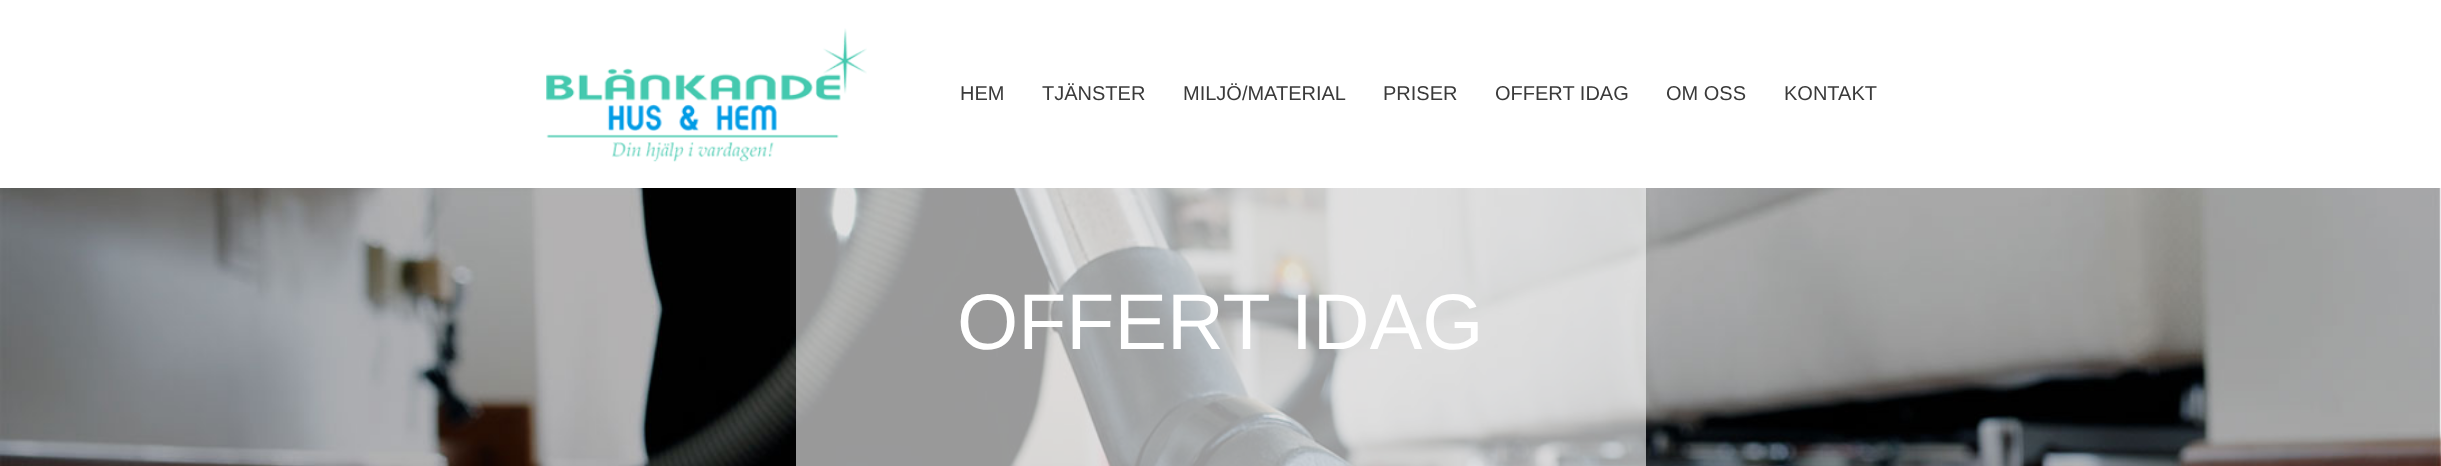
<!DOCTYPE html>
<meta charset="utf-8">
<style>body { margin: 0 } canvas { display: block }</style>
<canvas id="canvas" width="2441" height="466"></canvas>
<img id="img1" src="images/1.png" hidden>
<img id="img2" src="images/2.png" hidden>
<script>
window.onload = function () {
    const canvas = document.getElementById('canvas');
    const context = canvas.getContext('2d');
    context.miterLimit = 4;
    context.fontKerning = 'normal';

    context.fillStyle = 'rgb(255, 255, 255)';
    context.fillRect(0, 0, 2441, 466);
    context.drawImage(document.getElementById('img1'), 0, 188, 2441, 278);
    context.drawImage(document.getElementById('img2'), 546, 28, 321, 134);
    context.fillStyle = 'rgba(255, 255, 255, 0.6)';
    context.fillRect(796, 188, 850, 278);
    context.font = '20px Liberation Sans';
    context.fillStyle = 'rgb(58, 58, 58)';
    context.fillText('HEM', 960, 100);
    context.fillText('TJÄNSTER', 1042, 100);
    context.fillText('MILJÖ/MATERIAL', 1183, 100);
    context.fillText('PRISER', 1383, 100);
    context.fillText('OFFERT IDAG', 1495, 100);
    context.fillText('OM OSS', 1666, 100);
    context.fillText('KONTAKT', 1784, 100);
    context.font = '78.75px Liberation Sans';
    context.fillStyle = 'rgb(255, 255, 255)';
    context.fillText('OFFERT IDAG', 957, 349);
};
</script>
